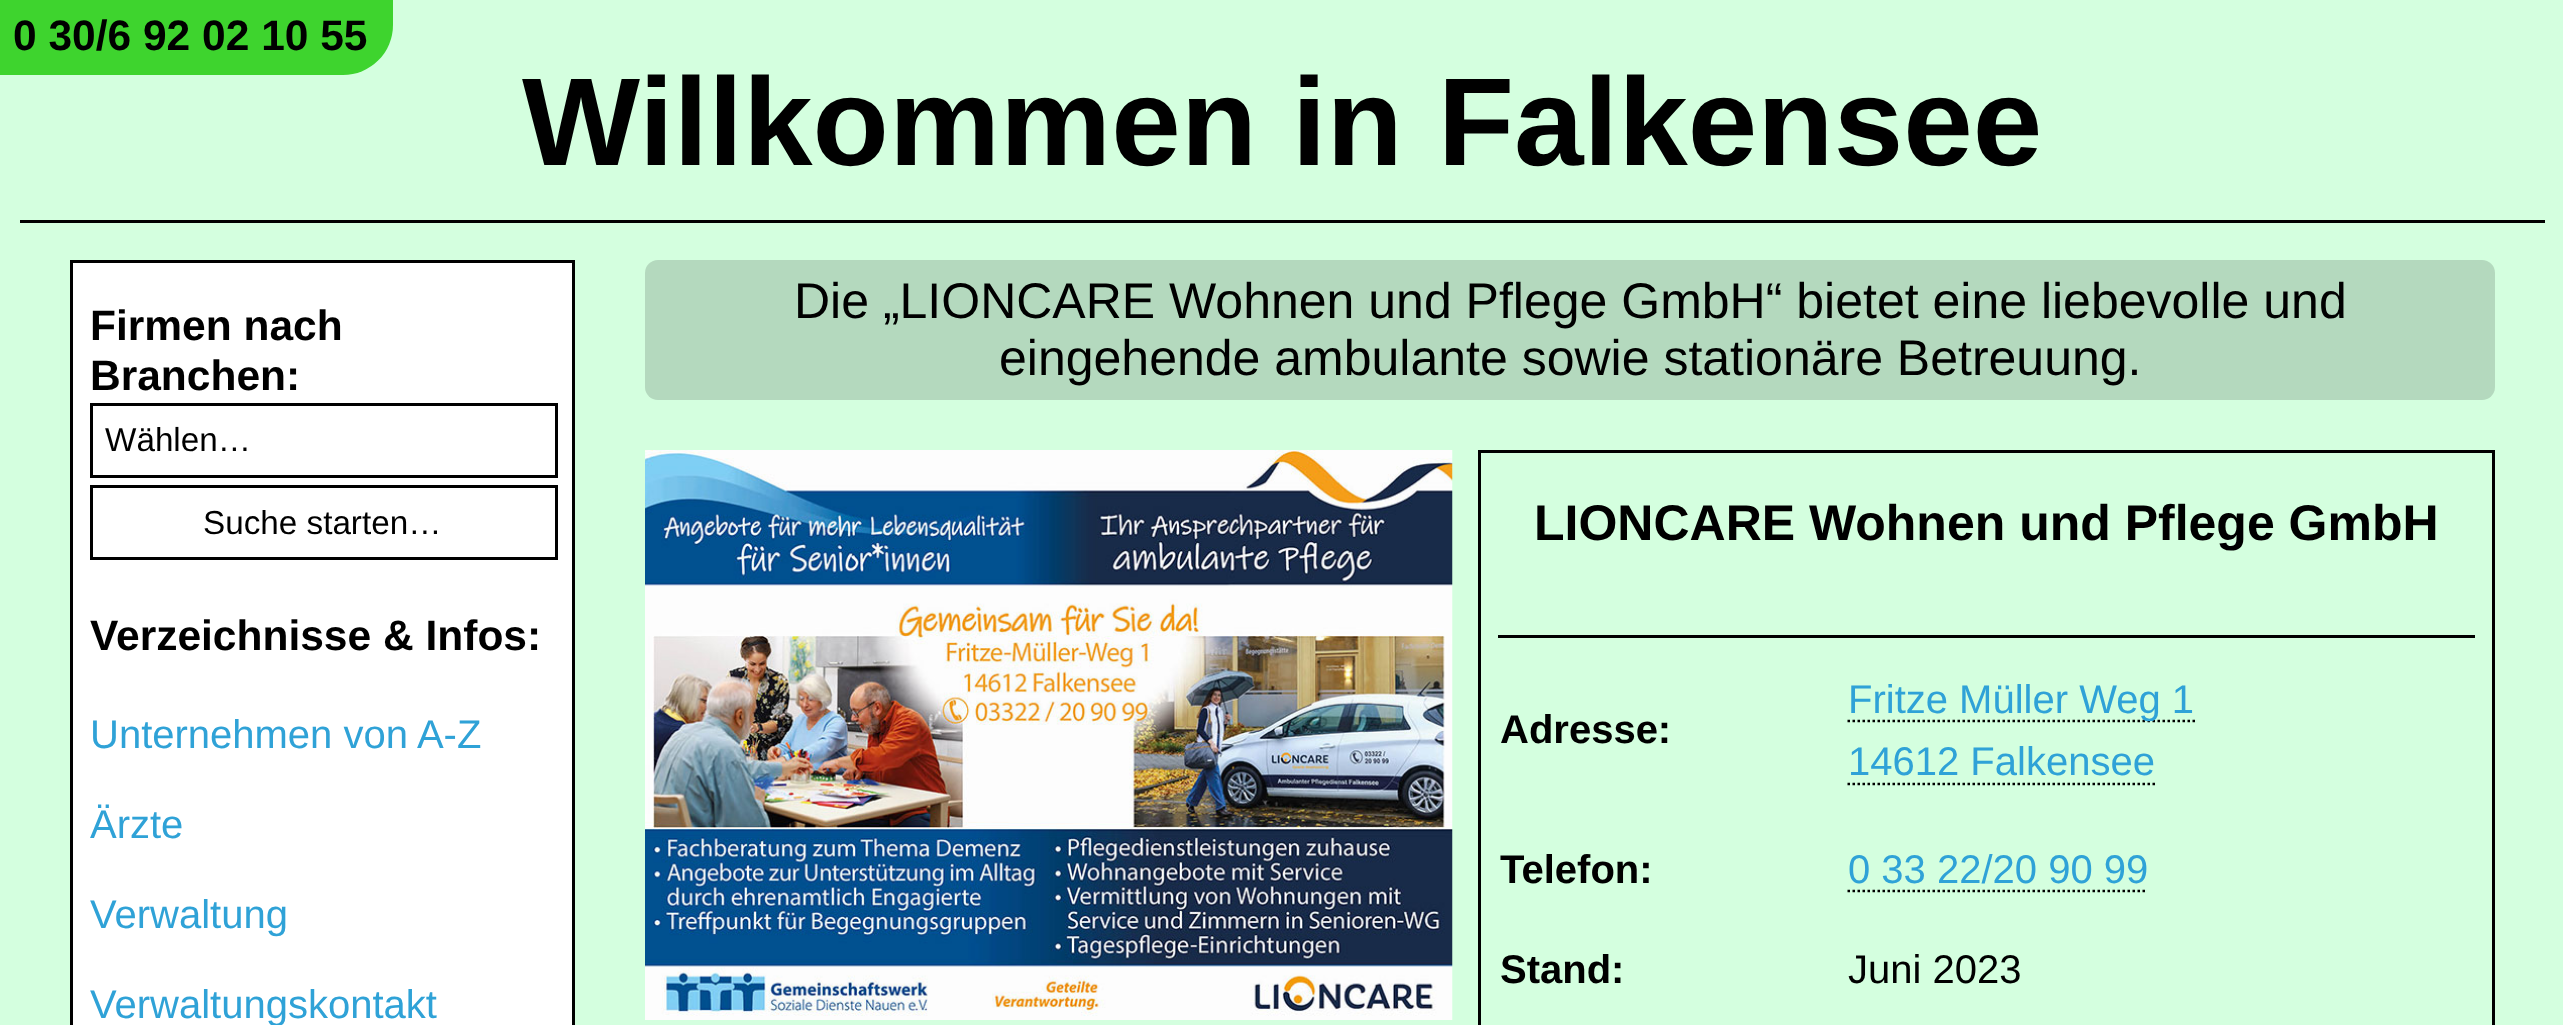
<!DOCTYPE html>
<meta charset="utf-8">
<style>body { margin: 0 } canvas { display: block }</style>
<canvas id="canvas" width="2563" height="1025"></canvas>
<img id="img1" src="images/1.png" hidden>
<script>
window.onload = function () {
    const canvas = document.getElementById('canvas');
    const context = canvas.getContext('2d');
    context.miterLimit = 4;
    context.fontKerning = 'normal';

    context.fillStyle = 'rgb(212, 255, 223)';
    context.fillRect(0, 0, 2563, 1025);
    context.fillStyle = 'rgb(62, 212, 46)';
    context.beginPath();
    context.roundRect(0, 0, 393, 75, [0, 0, 50, 0]);
    context.fill();
    context.fillStyle = 'rgb(0, 0, 0)';
    context.fillRect(20, 220, 2525, 3);
    context.fillStyle = 'rgb(255, 255, 255)';
    context.beginPath();
    context.rect(71.5, 261.5, 502, 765);
    context.fill();
    context.strokeStyle = 'rgb(0, 0, 0)';
    context.lineWidth = 3;
    context.stroke();
    context.strokeRect(91.5, 404.5, 465, 72);
    context.strokeRect(91.5, 486.5, 465, 72);
    context.fillStyle = 'rgb(180, 217, 190)';
    context.beginPath();
    context.roundRect(645, 260, 1850, 140, 13);
    context.fill();
    context.drawImage(document.getElementById('img1'), 645, 450, 808, 570);
    context.strokeRect(1479.5, 451.5, 1014, 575);
    context.fillStyle = 'rgb(0, 0, 0)';
    context.fillRect(1498, 635, 977, 3);
    context.beginPath();
    context.moveTo(1847.5, 721);
    context.lineTo(2195, 721);
    context.lineWidth = 2.5;
    context.setLineDash([2.5, 2.5]);
    context.stroke();
    context.beginPath();
    context.moveTo(1847.5, 784);
    context.lineTo(2155, 784);
    context.stroke();
    context.beginPath();
    context.moveTo(1847.5, 891);
    context.lineTo(2147.5, 891);
    context.stroke();
    context.font = 'bold 42.5px Liberation Sans';
    context.fillText('0 30/6 92 02 10 55', 13, 50);
    context.font = 'bold 125px Liberation Sans';
    context.fillText('Willkommen in Falkensee', 522, 165);
    context.font = 'bold 42.5px Liberation Sans';
    context.fillText('Firmen nach', 90, 340);
    context.fillText('Branchen:', 90, 390);
    context.font = '33.25px Liberation Sans';
    context.fillText('Wählen…', 105, 451);
    context.fillText('Suche starten…', 203, 534);
    context.font = 'bold 42.5px Liberation Sans';
    context.fillText('Verzeichnisse & Infos:', 90, 650);
    context.font = '40px Liberation Sans';
    context.fillStyle = 'rgb(47, 162, 215)';
    context.fillText('Unternehmen von A-Z', 90, 748);
    context.fillText('Ärzte', 90, 838);
    context.fillText('Verwaltung', 90, 928);
    context.fillText('Verwaltungskontakt', 90, 1018);
    context.font = '50px Liberation Sans';
    context.fillStyle = 'rgb(0, 0, 0)';
    context.fillText('Die „LIONCARE Wohnen und Pflege GmbH“ bietet eine liebevolle und', 794, 318);
    context.fillText('eingehende ambulante sowie stationäre Betreuung.', 999, 375);
    context.font = 'bold 50px Liberation Sans';
    context.fillText('LIONCARE Wohnen und Pflege GmbH', 1534, 540);
    context.font = 'bold 40px Liberation Sans';
    context.fillText('Adresse:', 1500, 743);
    context.font = '40px Liberation Sans';
    context.fillStyle = 'rgb(47, 162, 215)';
    context.fillText('Fritze Müller Weg 1', 1848, 713);
    context.fillText('14612 Falkensee', 1848, 775);
    context.font = 'bold 40px Liberation Sans';
    context.fillStyle = 'rgb(0, 0, 0)';
    context.fillText('Telefon:', 1500, 883);
    context.font = '40px Liberation Sans';
    context.fillStyle = 'rgb(47, 162, 215)';
    context.fillText('0 33 22/20 90 99', 1848, 883);
    context.font = 'bold 40px Liberation Sans';
    context.fillStyle = 'rgb(0, 0, 0)';
    context.fillText('Stand:', 1500, 983);
    context.font = '40px Liberation Sans';
    context.fillText('Juni 2023', 1848, 983);
};
</script>
